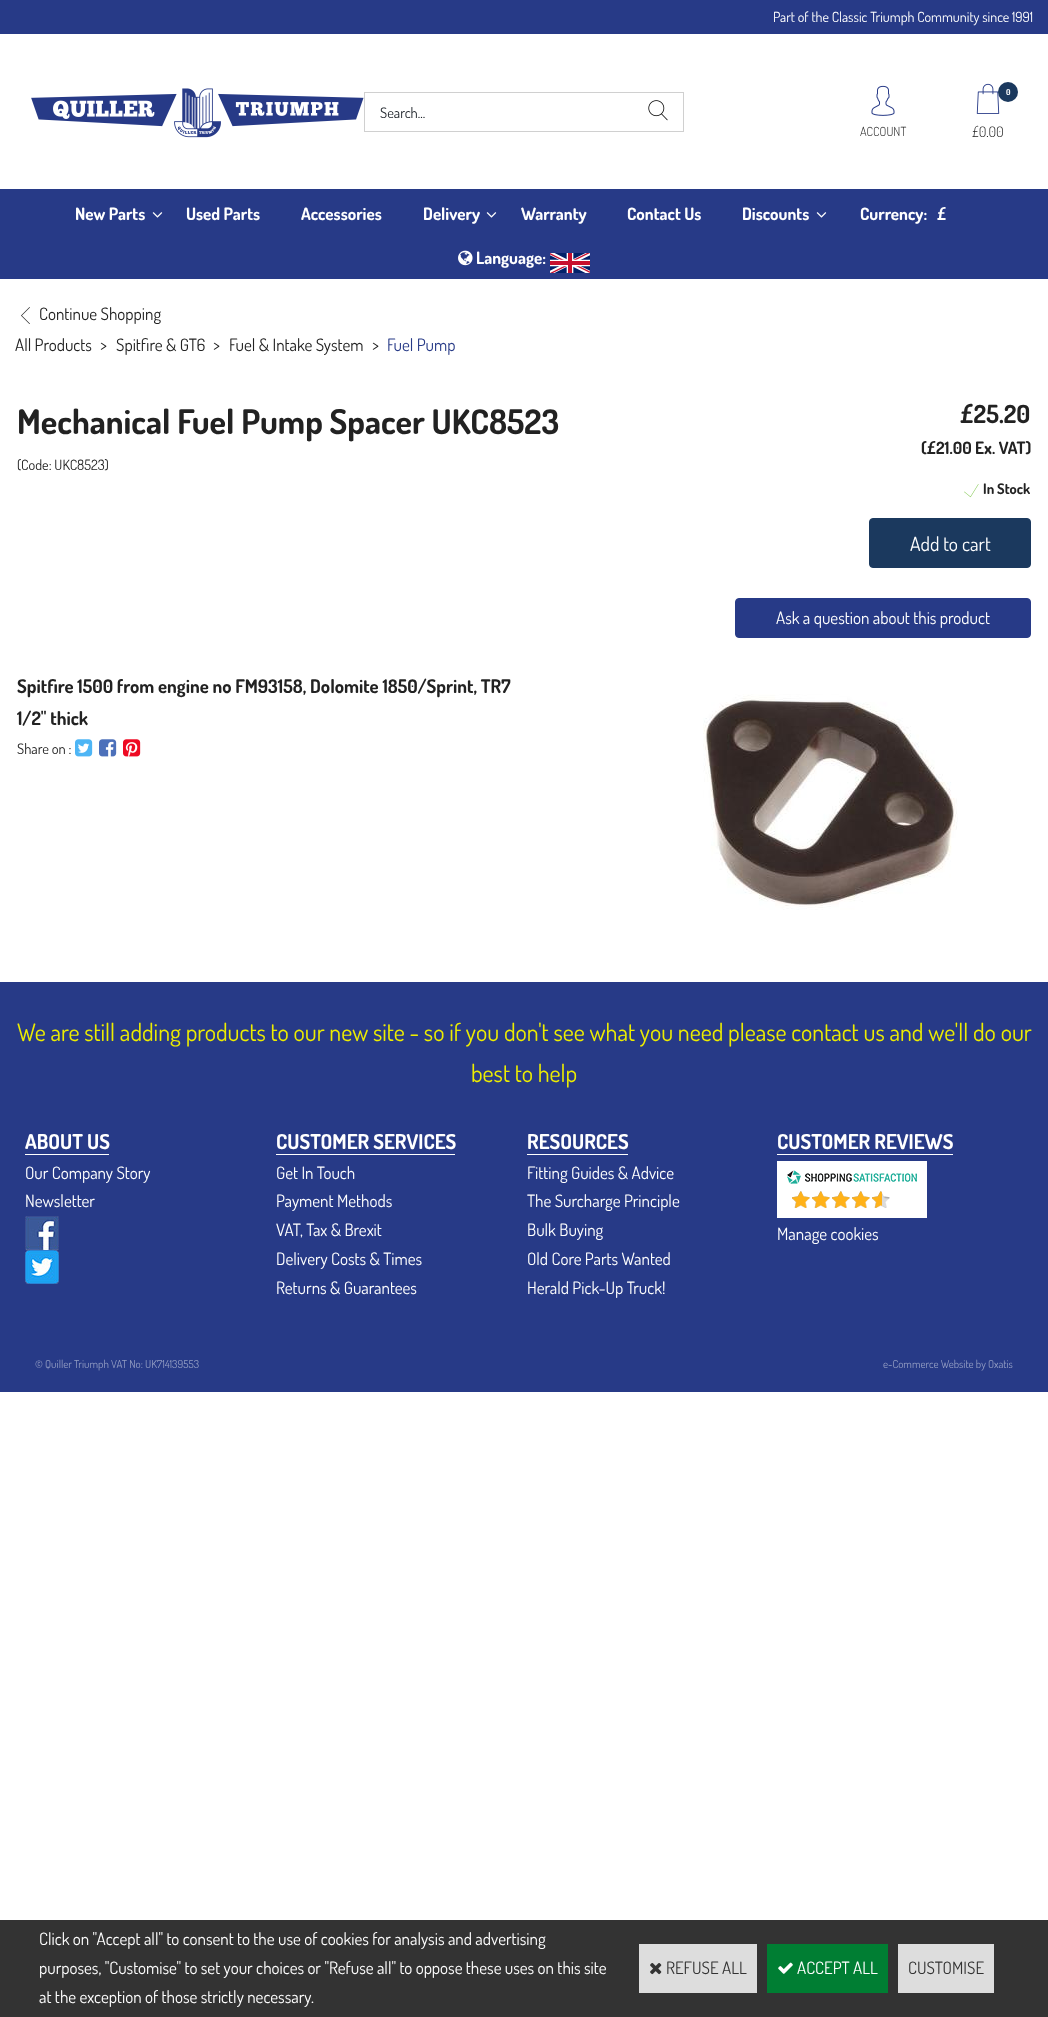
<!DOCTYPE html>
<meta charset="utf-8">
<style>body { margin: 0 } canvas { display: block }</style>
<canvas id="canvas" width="1048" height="2017"></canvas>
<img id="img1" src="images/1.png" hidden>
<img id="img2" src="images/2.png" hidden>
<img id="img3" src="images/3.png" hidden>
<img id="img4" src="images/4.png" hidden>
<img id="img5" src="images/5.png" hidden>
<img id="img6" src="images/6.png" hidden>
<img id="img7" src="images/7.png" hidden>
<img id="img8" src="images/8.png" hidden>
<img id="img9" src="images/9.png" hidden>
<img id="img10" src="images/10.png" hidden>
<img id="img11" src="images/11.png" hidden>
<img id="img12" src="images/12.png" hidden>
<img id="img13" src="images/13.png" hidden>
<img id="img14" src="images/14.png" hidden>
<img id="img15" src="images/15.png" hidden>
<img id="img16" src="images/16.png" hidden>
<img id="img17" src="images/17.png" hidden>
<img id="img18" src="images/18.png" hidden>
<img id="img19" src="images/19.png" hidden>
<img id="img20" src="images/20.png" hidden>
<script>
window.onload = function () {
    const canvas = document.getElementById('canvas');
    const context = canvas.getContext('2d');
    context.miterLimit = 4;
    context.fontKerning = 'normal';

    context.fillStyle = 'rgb(255, 255, 255)';
    context.fillRect(0, 0, 1048, 2017);
    context.fillStyle = 'rgb(39, 58, 135)';
    context.fillRect(0, 0, 1048, 34);
    context.drawImage(document.getElementById('img1'), 31, 88, 333, 50);
    context.fillStyle = 'rgb(208, 208, 208)';
    context.fillRect(364, 92, 320, 1);
    context.fillRect(364, 131, 269, 1);
    context.fillRect(364, 92, 1, 40);
    context.fillRect(683, 92, 1, 40);
    context.fillRect(633, 131, 51, 1);
    context.drawImage(document.getElementById('img2'), 648, 100, 20, 21);
    context.drawImage(document.getElementById('img3'), 871, 85, 24, 31);
    context.drawImage(document.getElementById('img4'), 976, 83, 24, 31);
    context.fillStyle = 'rgb(27, 57, 94)';
    context.beginPath();
    context.arc(1008, 92, 10, 0, 2 * Math.PI);
    context.fill();
    context.fillStyle = 'rgb(39, 58, 135)';
    context.fillRect(0, 189, 1048, 90);
    context.drawImage(document.getElementById('img5'), 152, 212, 11, 6);
    context.drawImage(document.getElementById('img5'), 486, 212, 11, 6);
    context.drawImage(document.getElementById('img5'), 816, 212, 11, 6);
    context.drawImage(document.getElementById('img6'), 458, 250, 15, 16);
    context.drawImage(document.getElementById('img7'), 550, 253, 40, 20);
    context.drawImage(document.getElementById('img8'), 21, 307, 9, 17);
    context.drawImage(document.getElementById('img9'), 964, 484, 15, 14);
    context.fillStyle = 'rgb(27, 57, 94)';
    context.beginPath();
    context.roundRect(869.5, 518.5, 161, 49, 3.5);
    context.fill();
    context.strokeStyle = 'rgb(27, 57, 94)';
    context.stroke();
    context.fillStyle = 'rgb(39, 58, 135)';
    context.beginPath();
    context.roundRect(735.5, 598.5, 295, 39, 3.5);
    context.fill();
    context.strokeStyle = 'rgb(39, 58, 135)';
    context.stroke();
    context.drawImage(document.getElementById('img10'), 703, 694, 255, 216);
    context.drawImage(document.getElementById('img11'), 75, 739, 18, 18);
    context.drawImage(document.getElementById('img12'), 99, 739, 18, 18);
    context.drawImage(document.getElementById('img13'), 123, 739, 18, 18);
    context.fillRect(0, 982, 1048, 410);
    context.fillStyle = 'rgb(255, 255, 255)';
    context.fillRect(25, 1154, 84, 1);
    context.drawImage(document.getElementById('img14'), 25, 1216, 34, 34);
    context.drawImage(document.getElementById('img15'), 25, 1250, 34, 34);
    context.fillRect(276, 1154, 179, 1);
    context.fillRect(527, 1154, 101, 1);
    context.fillRect(777, 1154, 176, 1);
    context.fillRect(777, 1161, 150, 57);
    context.drawImage(document.getElementById('img16'), 787, 1170, 130, 14);
    context.drawImage(document.getElementById('img17'), 792, 1191, 98, 17);
    context.drawImage(document.getElementById('img18'), 792, 1191, 90, 17);
    context.fillStyle = 'rgb(51, 51, 51)';
    context.fillRect(0, 1920, 1048, 97);
    context.fillStyle = 'rgb(221, 221, 221)';
    context.fillRect(639, 1944, 118, 49);
    context.drawImage(document.getElementById('img19'), 650, 1963, 12, 12);
    context.fillStyle = 'rgb(0, 126, 51)';
    context.fillRect(767, 1944, 121, 49);
    context.drawImage(document.getElementById('img20'), 778, 1962, 15, 12);
    context.fillStyle = 'rgb(221, 221, 221)';
    context.fillRect(898, 1944, 96, 49);
    context.font = '14px Dosis';
    context.fillStyle = 'rgb(255, 255, 255)';
    context.fillText('Part of the Classic Triumph Community since 1991', 773, 22);
    context.font = '14.5px Dosis';
    context.fillStyle = 'rgb(26, 31, 38)';
    context.fillText('Search...', 380, 118);
    context.font = '300 12.5px Dosis';
    context.fillStyle = 'rgb(34, 34, 34)';
    context.fillText('ACCOUNT', 860, 136);
    context.font = 'bold 8px Dosis';
    context.fillStyle = 'rgb(255, 255, 255)';
    context.fillText('0', 1006, 95);
    context.font = '300 14.5px Dosis';
    context.fillStyle = 'rgb(34, 34, 34)';
    context.fillText('£0.00', 972, 137);
    context.font = 'bold 17px Dosis';
    context.fillStyle = 'rgb(255, 255, 255)';
    context.fillText('New Parts', 75, 220);
    context.fillText('Used Parts', 186, 220);
    context.fillText('Accessories', 301, 220);
    context.fillText('Delivery', 423, 220);
    context.fillText('Warranty', 521, 220);
    context.fillText('Contact Us', 627, 220);
    context.fillText('Discounts', 742, 220);
    context.fillText('Currency:', 860, 220);
    context.fillText('£', 937, 220);
    context.fillText('Language:', 476, 264);
    context.font = '17px Dosis';
    context.fillStyle = 'rgb(34, 34, 34)';
    context.fillText('Continue Shopping', 39, 320);
    context.fillText('All Products', 15, 351);
    context.fillText('>', 100, 351);
    context.fillText('Spitfire & GT6', 116, 351);
    context.fillText('>', 213, 351);
    context.fillText('Fuel & Intake System', 229, 351);
    context.fillText('>', 372, 351);
    context.fillStyle = 'rgb(39, 58, 135)';
    context.fillText('Fuel Pump', 387, 351);
    context.font = 'bold 34px Dosis';
    context.fillStyle = 'rgb(34, 34, 34)';
    context.fillText('Mechanical Fuel Pump Spacer UKC8523', 17, 434);
    context.font = '14.25px Dosis';
    context.fillText('(Code: UKC8523)', 17, 470);
    context.font = 'bold 25px Dosis';
    context.fillText('£25.20', 960, 423);
    context.font = 'bold 17px Dosis';
    context.fillText('(£21.00 Ex. VAT)', 921, 454);
    context.font = 'bold 14.5px Dosis';
    context.fillText('In Stock', 983, 494);
    context.font = '19.5px Dosis';
    context.fillStyle = 'rgb(255, 255, 255)';
    context.fillText('Add to cart', 910, 551);
    context.font = '17px Dosis';
    context.fillText('Ask a question about this product', 776, 624);
    context.font = 'bold 18.7px Dosis';
    context.fillStyle = 'rgb(34, 34, 34)';
    context.fillText('Spitfire 1500 from engine no FM93158, Dolomite 1850/Sprint, TR7', 17, 693);
    context.fillText('1/2" thick', 17, 725);
    context.font = '14.5px Dosis';
    context.fillText('Share on :', 17, 754);
    context.font = '24px Dosis';
    context.fillStyle = 'rgb(237, 237, 0)';
    context.fillText('We are still adding products to our new site - so if you don\'t see what you need please contact us and we\'ll do our', 17, 1041);
    context.fillText('best to help', 471, 1082);
    context.font = 'bold 20.5px Dosis';
    context.fillStyle = 'rgb(255, 255, 255)';
    context.fillText('ABOUT US', 25, 1149);
    context.font = '17px Dosis';
    context.fillText('Our Company Story', 25, 1179);
    context.fillText('Newsletter', 25, 1207);
    context.font = 'bold 20.5px Dosis';
    context.fillText('CUSTOMER SERVICES', 276, 1149);
    context.font = '17px Dosis';
    context.fillText('Get In Touch', 276, 1179);
    context.fillText('Payment Methods', 276, 1207);
    context.fillText('VAT, Tax & Brexit', 276, 1236);
    context.fillText('Delivery Costs & Times', 276, 1265);
    context.fillText('Returns & Guarantees', 276, 1294);
    context.font = 'bold 20.5px Dosis';
    context.fillText('RESOURCES', 527, 1149);
    context.font = '17px Dosis';
    context.fillText('Fitting Guides & Advice', 527, 1179);
    context.fillText('The Surcharge Principle', 527, 1207);
    context.fillText('Bulk Buying', 527, 1236);
    context.fillText('Old Core Parts Wanted', 527, 1265);
    context.fillText('Herald Pick-Up Truck!', 527, 1294);
    context.font = 'bold 20.5px Dosis';
    context.fillText('CUSTOMER REVIEWS', 777, 1149);
    context.font = '17px Dosis';
    context.fillText('Manage cookies', 777, 1240);
    context.font = '11px Dosis';
    context.fillStyle = 'rgb(147, 157, 195)';
    context.fillText('© Quiller Triumph VAT No: UK714139553', 35, 1368);
    context.fillText('e-Commerce Website by Oxatis', 883, 1368);
    context.font = '17px Dosis';
    context.fillStyle = 'rgb(255, 255, 255)';
    context.fillText('Click on "Accept all" to consent to the use of cookies for analysis and advertising', 39, 1945);
    context.fillText('purposes, "Customise" to set your choices or "Refuse all" to oppose these uses on this site', 39, 1974);
    context.fillText('at the exception of those strictly necessary.', 39, 2003);
    context.fillStyle = 'rgb(51, 51, 51)';
    context.fillText('REFUSE ALL', 666, 1974);
    context.fillStyle = 'rgb(255, 255, 255)';
    context.fillText('ACCEPT ALL', 797, 1974);
    context.fillStyle = 'rgb(51, 51, 51)';
    context.fillText('CUSTOMISE', 908, 1974);
};
</script>
